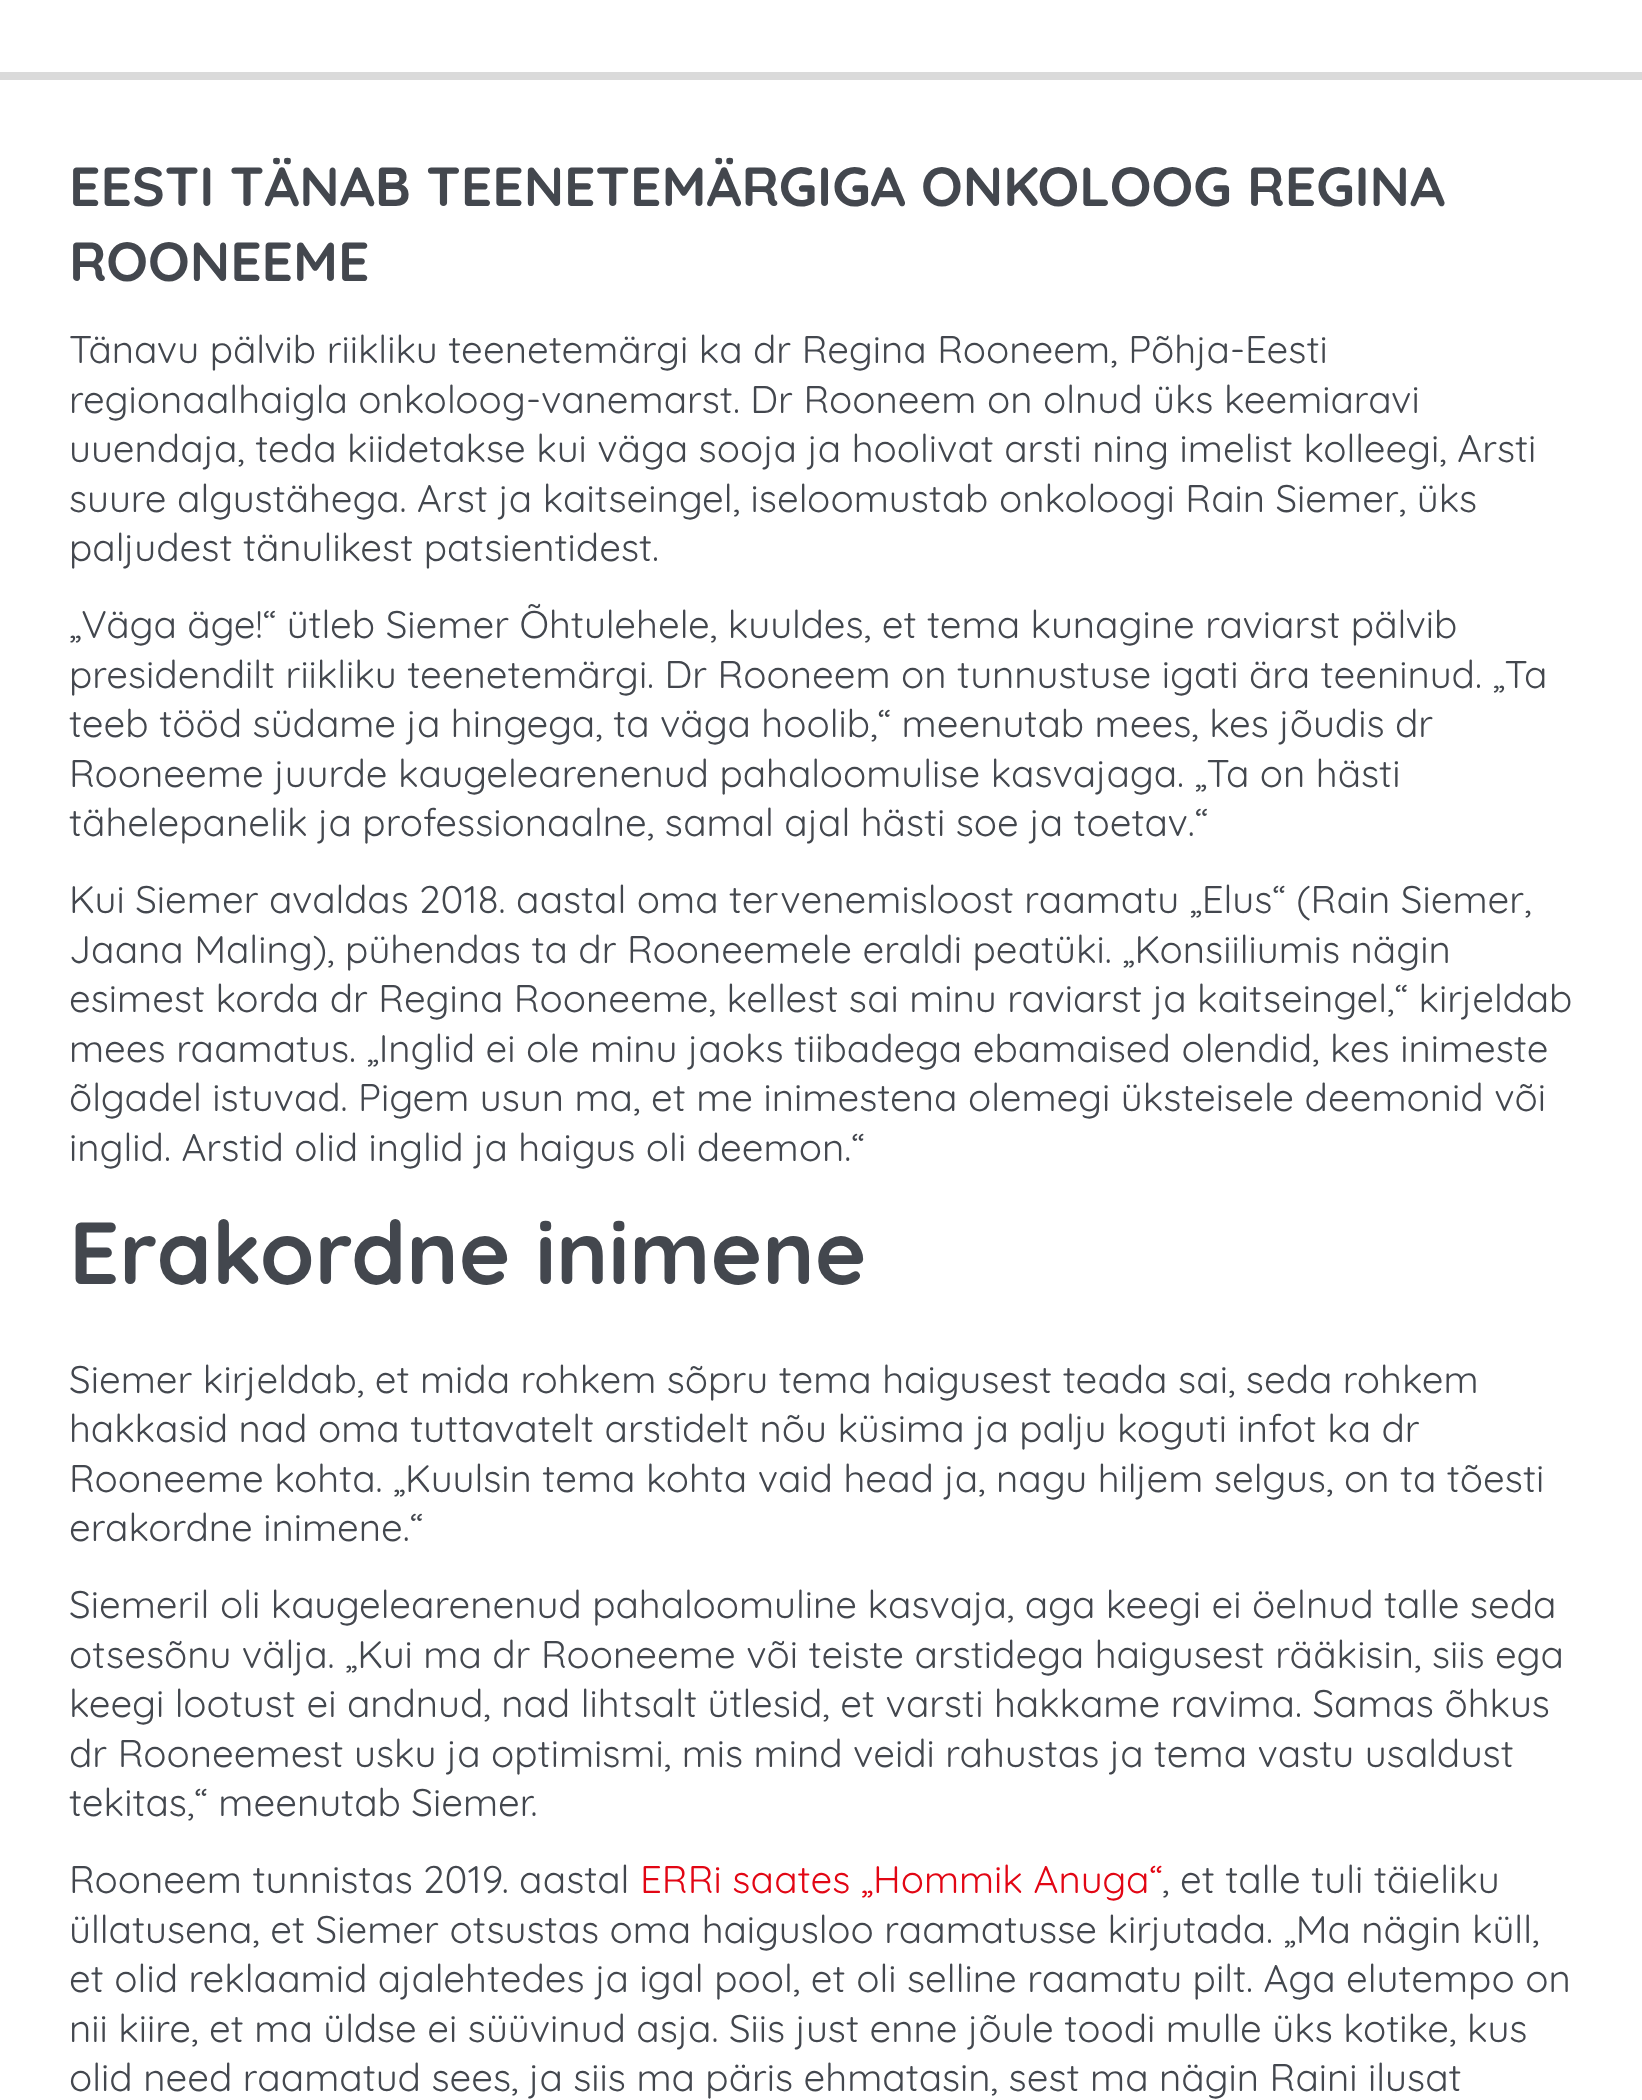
<!DOCTYPE html>
<meta charset="utf-8">
<style>body { margin: 0 } canvas { display: block }</style>
<canvas id="canvas" width="1642" height="2100"></canvas>
<script>
window.onload = function () {
    const canvas = document.getElementById('canvas');
    const context = canvas.getContext('2d');
    context.miterLimit = 4;
    context.fontKerning = 'normal';

    context.fillStyle = 'rgb(255, 255, 255)';
    context.fillRect(0, 0, 1642, 2100);
    context.fillStyle = 'rgb(218, 218, 218)';
    context.fillRect(0, 72, 1642, 8);
    context.font = 'bold 55px Quicksand';
    context.fillStyle = 'rgb(67, 71, 78)';
    context.fillText('EESTI TÄNAB TEENETEMÄRGIGA ONKOLOOG REGINA', 69, 206);
    context.fillText('ROONEEME', 69, 281);
    context.font = '38.5px Quicksand';
    context.fillText('Tänavu pälvib riikliku teenetemärgi ka dr Regina Rooneem, Põhja-Eesti', 69, 363);
    context.fillText('regionaalhaigla onkoloog-vanemarst. Dr Rooneem on olnud üks keemiaravi', 69, 413);
    context.fillText('uuendaja, teda kiidetakse kui väga sooja ja hoolivat arsti ning imelist kolleegi, Arsti', 69, 462);
    context.fillText('suure algustähega. Arst ja kaitseingel, iseloomustab onkoloogi Rain Siemer, üks', 69, 512);
    context.fillText('paljudest tänulikest patsientidest.', 69, 561);
    context.fillText('„Väga äge!“ ütleb Siemer Õhtulehele, kuuldes, et tema kunagine raviarst pälvib', 69, 638);
    context.fillText('presidendilt riikliku teenetemärgi. Dr Rooneem on tunnustuse igati ära teeninud. „Ta', 69, 688);
    context.fillText('teeb tööd südame ja hingega, ta väga hoolib,“ meenutab mees, kes jõudis dr', 69, 737);
    context.fillText('Rooneeme juurde kaugelearenenud pahaloomulise kasvajaga. „Ta on hästi', 69, 787);
    context.fillText('tähelepanelik ja professionaalne, samal ajal hästi soe ja toetav.“', 69, 836);
    context.fillText('Kui Siemer avaldas 2018. aastal oma tervenemisloost raamatu „Elus“ (Rain Siemer,', 69, 913);
    context.fillText('Jaana Maling), pühendas ta dr Rooneemele eraldi peatüki. „Konsiiliumis nägin', 69, 963);
    context.fillText('esimest korda dr Regina Rooneeme, kellest sai minu raviarst ja kaitseingel,“ kirjeldab', 69, 1012);
    context.fillText('mees raamatus. „Inglid ei ole minu jaoks tiibadega ebamaised olendid, kes inimeste', 69, 1062);
    context.fillText('õlgadel istuvad. Pigem usun ma, et me inimestena olemegi üksteisele deemonid või', 69, 1111);
    context.fillText('inglid. Arstid olid inglid ja haigus oli deemon.“', 69, 1161);
    context.font = 'bold 88px Quicksand';
    context.fillText('Erakordne inimene', 69, 1284);
    context.font = '38.5px Quicksand';
    context.fillText('Siemer kirjeldab, et mida rohkem sõpru tema haigusest teada sai, seda rohkem', 69, 1393);
    context.fillText('hakkasid nad oma tuttavatelt arstidelt nõu küsima ja palju koguti infot ka dr', 69, 1442);
    context.fillText('Rooneeme kohta. „Kuulsin tema kohta vaid head ja, nagu hiljem selgus, on ta tõesti', 69, 1492);
    context.fillText('erakordne inimene.“', 69, 1541);
    context.fillText('Siemeril oli kaugelearenenud pahaloomuline kasvaja, aga keegi ei öelnud talle seda', 69, 1618);
    context.fillText('otsesõnu välja. „Kui ma dr Rooneeme või teiste arstidega haigusest rääkisin, siis ega', 69, 1668);
    context.fillText('keegi lootust ei andnud, nad lihtsalt ütlesid, et varsti hakkame ravima. Samas õhkus', 69, 1717);
    context.fillText('dr Rooneemest usku ja optimismi, mis mind veidi rahustas ja tema vastu usaldust', 69, 1767);
    context.fillText('tekitas,“ meenutab Siemer.', 69, 1816);
    context.fillText('Rooneem tunnistas 2019. aastal', 69, 1893);
    context.fillStyle = 'rgb(226, 6, 20)';
    context.fillText('ERRi saates „Hommik Anuga“', 640, 1893);
    context.fillStyle = 'rgb(67, 71, 78)';
    context.fillText(', et talle tuli täieliku', 1162, 1893);
    context.fillText('üllatusena, et Siemer otsustas oma haigusloo raamatusse kirjutada. „Ma nägin küll,', 69, 1943);
    context.fillText('et olid reklaamid ajalehtedes ja igal pool, et oli selline raamatu pilt. Aga elutempo on', 69, 1992);
    context.fillText('nii kiire, et ma üldse ei süüvinud asja. Siis just enne jõule toodi mulle üks kotike, kus', 69, 2042);
    context.fillText('olid need raamatud sees, ja siis ma päris ehmatasin, sest ma nägin Raini ilusat', 69, 2091);
};
</script>
